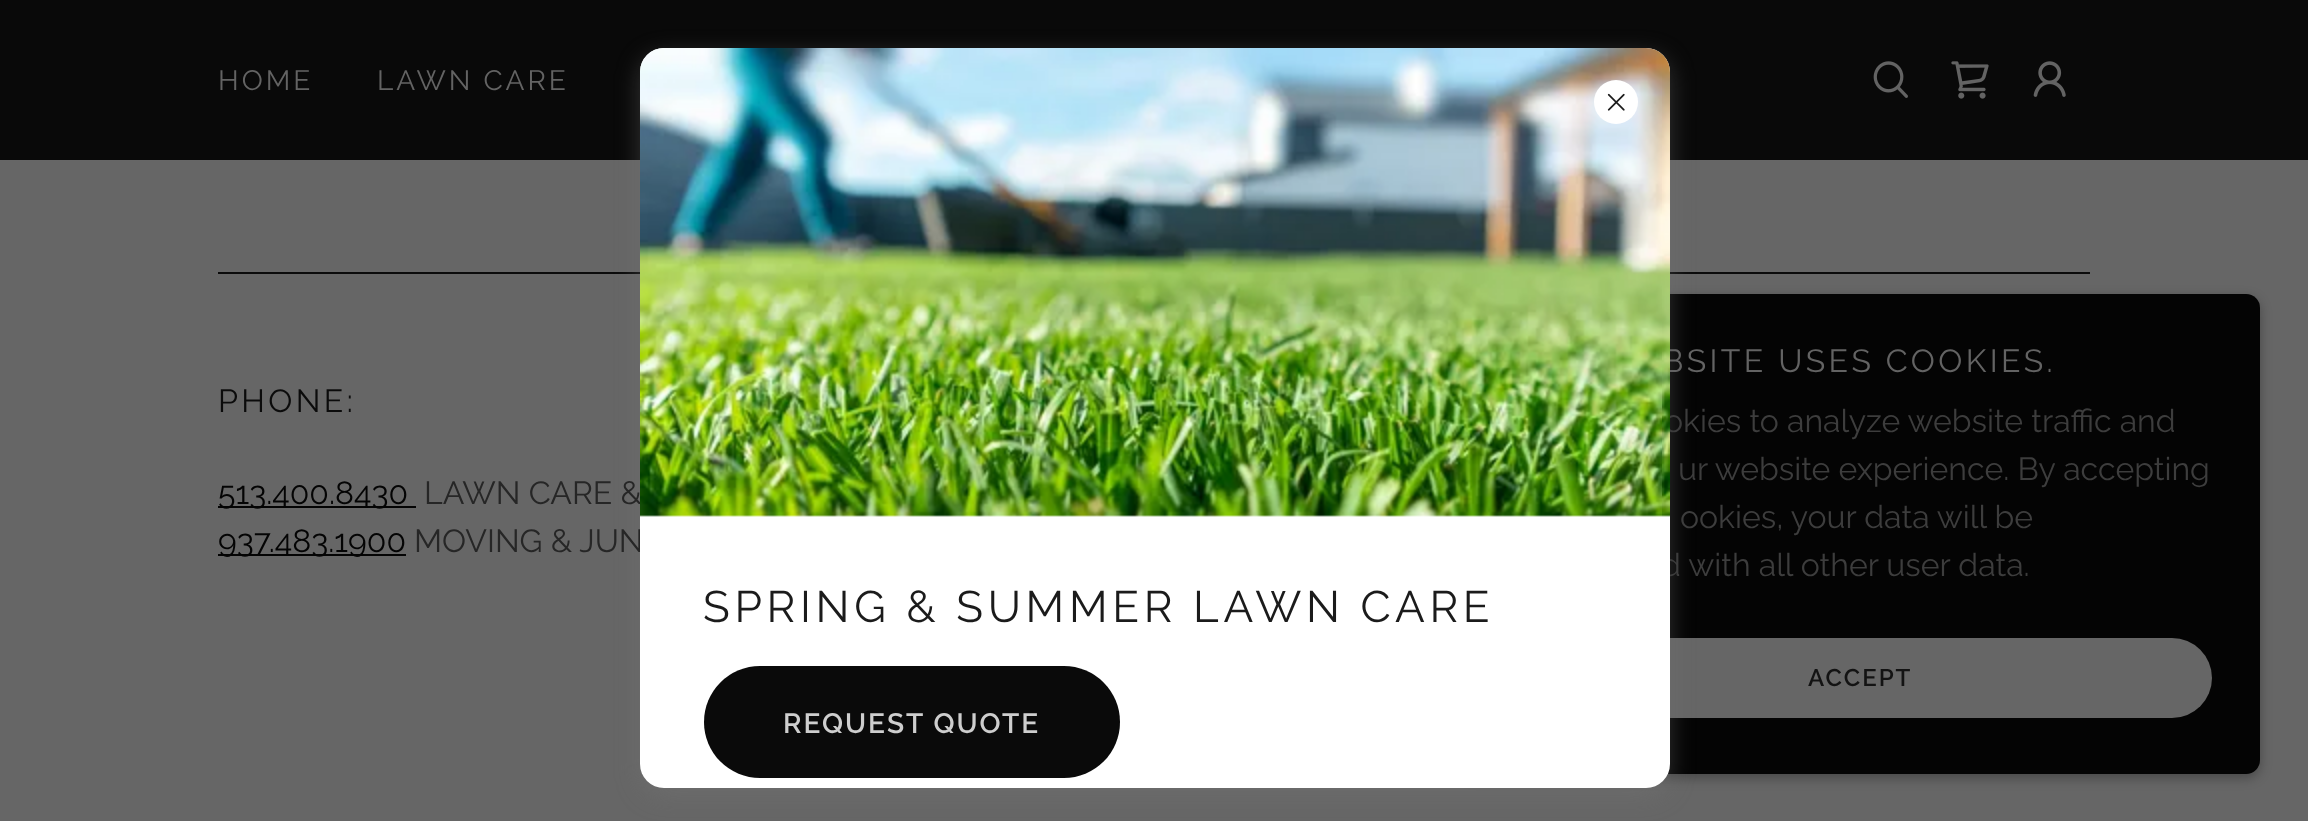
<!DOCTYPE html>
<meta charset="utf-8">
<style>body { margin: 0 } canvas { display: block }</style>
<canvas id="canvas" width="2308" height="821"></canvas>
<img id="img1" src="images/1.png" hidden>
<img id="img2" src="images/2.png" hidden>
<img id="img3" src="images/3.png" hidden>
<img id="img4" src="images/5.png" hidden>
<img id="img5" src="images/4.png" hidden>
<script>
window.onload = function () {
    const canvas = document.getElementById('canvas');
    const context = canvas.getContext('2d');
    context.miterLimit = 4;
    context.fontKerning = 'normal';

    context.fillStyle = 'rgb(102, 102, 102)';
    context.fillRect(0, 0, 2308, 821);
    context.fillStyle = 'rgb(9, 9, 9)';
    context.fillRect(0, 0, 2308, 160);
    context.drawImage(document.getElementById('img1'), 1873, 61, 35, 37);
    context.drawImage(document.getElementById('img2'), 1951, 61, 38, 38);
    context.drawImage(document.getElementById('img3'), 2033, 61, 33, 36);
    context.fillStyle = 'rgb(11, 11, 11)';
    context.fillRect(218, 272, 422, 2);
    context.fillRect(1670, 272, 420, 2);
    context.fillStyle = 'rgb(4, 4, 4)';
    context.fillRect(218, 506, 198, 2);
    context.fillRect(218, 554, 188, 2);
    context.fillStyle = 'rgba(0, 0, 0, 0.3)';
    context.filter = 'blur(6px)';
    context.beginPath();
    context.roundRect(1460, 298, 800, 480, 14);
    context.fill();
    context.filter = 'none';
    context.fillStyle = 'rgb(4, 4, 4)';
    context.beginPath();
    context.roundRect(1460, 294, 800, 480, 14);
    context.fill();
    context.fillStyle = 'rgb(102, 102, 102)';
    context.beginPath();
    context.roundRect(1508, 638, 704, 80, 40);
    context.fill();
    context.fillStyle = 'rgba(117, 117, 117, 0.4)';
    context.filter = 'blur(12px)';
    context.beginPath();
    context.roundRect(640, 56, 1030, 740, 24);
    context.fill();
    context.filter = 'none';
    context.letterSpacing = '3px';
    context.font = '28px Raleway';
    context.fillStyle = 'rgb(99, 99, 99)';
    context.fillText('HOME', 218, 90);
    context.fillText('LAWN CARE', 377, 90);
    context.letterSpacing = '3.4px';
    context.font = '32px Raleway';
    context.fillStyle = 'rgb(11, 11, 11)';
    context.fillText('PHONE:', 218, 412);
    context.letterSpacing = '0px';
    context.fillStyle = 'rgb(4, 4, 4)';
    context.fillText('513.400.8430', 218, 504);
    context.fillStyle = 'rgb(38, 38, 38)';
    context.fillText('LAWN CARE &', 424, 504);
    context.fillStyle = 'rgb(4, 4, 4)';
    context.fillText('937.483.1900', 218, 552);
    context.fillStyle = 'rgb(38, 38, 38)';
    context.fillText('MOVING & JUN', 414, 552);
    context.letterSpacing = '3.4px';
    context.fillStyle = 'rgb(99, 99, 99)';
    context.fillText('BSITE USES COOKIES.', 1662, 372);
    context.letterSpacing = '0px';
    context.fillStyle = 'rgb(61, 61, 61)';
    context.fillText('okies to analyze website traffic and', 1664, 432);
    context.fillText('ur website experience. By accepting', 1678, 480);
    context.fillText('ookies, your data will be', 1680, 528);
    context.fillText('d with all other user data.', 1661, 576);
    context.letterSpacing = '2px';
    context.font = '600 24px Raleway';
    context.fillStyle = 'rgb(19, 19, 19)';
    context.fillText('ACCEPT', 1808, 686);
    context.fillStyle = 'rgb(255, 255, 255)';
    context.beginPath();
    context.roundRect(640, 48, 1030, 740, 24);
    context.fill();
    context.drawImage(document.getElementById('img4'), 640, 48, 1030, 469);
    context.beginPath();
    context.arc(1616, 102, 22, 0, 2 * Math.PI);
    context.fill();
    context.drawImage(document.getElementById('img5'), 1607, 93, 18, 18);
    context.letterSpacing = '4.7px';
    context.font = '44px Raleway';
    context.fillStyle = 'rgb(27, 27, 27)';
    context.fillText('SPRING & SUMMER LAWN CARE', 703, 622);
    context.fillStyle = 'rgb(10, 10, 10)';
    context.beginPath();
    context.roundRect(704, 666, 416, 112, 56);
    context.fill();
    context.letterSpacing = '2px';
    context.font = '600 28px Raleway';
    context.fillStyle = 'rgb(206, 206, 206)';
    context.fillText('REQUEST QUOTE', 783, 733);
};
</script>
